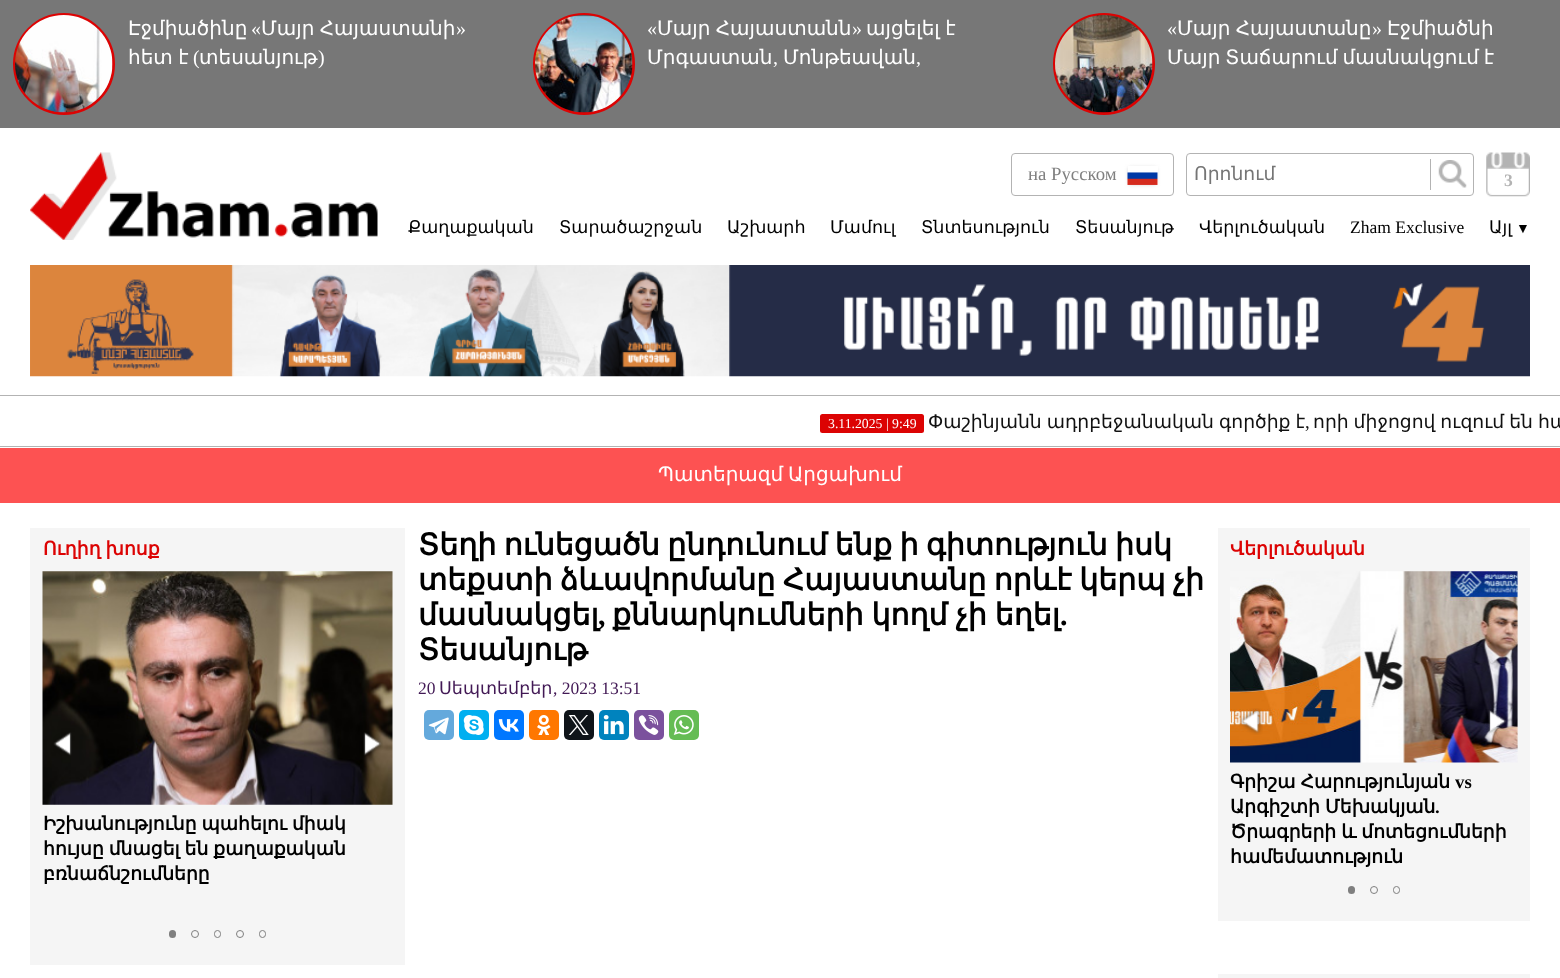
<!DOCTYPE html>
<meta charset="utf-8">
<style>body { margin: 0 } canvas { display: block }</style>
<canvas id="canvas" width="1560" height="978"></canvas>
<img id="img1" src="images/1.png" hidden>
<img id="img2" src="images/2.png" hidden>
<img id="img3" src="images/3.png" hidden>
<img id="img4" src="images/4.png" hidden>
<img id="img5" src="images/5.png" hidden>
<img id="img6" src="images/6.png" hidden>
<img id="img7" src="images/7.png" hidden>
<img id="img8" src="images/8.png" hidden>
<img id="img9" src="images/11.png" hidden>
<img id="img10" src="images/9.png" hidden>
<img id="img11" src="images/10.png" hidden>
<img id="img12" src="images/12.png" hidden>
<img id="img13" src="images/13.png" hidden>
<img id="img14" src="images/14.png" hidden>
<img id="img15" src="images/15.png" hidden>
<img id="img16" src="images/16.png" hidden>
<img id="img17" src="images/17.png" hidden>
<img id="img18" src="images/18.png" hidden>
<img id="img19" src="images/19.png" hidden>
<img id="img20" src="images/22.png" hidden>
<img id="img21" src="images/20.png" hidden>
<img id="img22" src="images/21.png" hidden>
<script>
window.onload = function () {
    const canvas = document.getElementById('canvas');
    const context = canvas.getContext('2d');
    context.miterLimit = 4;
    context.fontKerning = 'normal';

    context.fillStyle = 'rgb(255, 255, 255)';
    context.fillRect(0, 0, 1560, 978);
    context.fillStyle = 'rgb(119, 119, 119)';
    context.fillRect(0, 0, 1560, 128);
    context.beginPath();
    context.arc(64, 64, 49.5, 0, 2 * Math.PI);
    context.strokeStyle = 'rgb(220, 3, 3)';
    context.lineWidth = 3;
    context.stroke();
    context.drawImage(document.getElementById('img1'), 15, 15, 98, 98);
    context.beginPath();
    context.arc(584, 64, 49.5, 0, 2 * Math.PI);
    context.stroke();
    context.drawImage(document.getElementById('img2'), 535, 15, 98, 98);
    context.beginPath();
    context.arc(1104, 64, 49.5, 0, 2 * Math.PI);
    context.stroke();
    context.drawImage(document.getElementById('img3'), 1055, 15, 98, 98);
    context.drawImage(document.getElementById('img4'), 30, 152, 348, 88);
    context.beginPath();
    context.roundRect(1011.5, 153.5, 162, 42, 3.5);
    context.strokeStyle = 'rgb(179, 179, 179)';
    context.lineWidth = 1;
    context.stroke();
    context.save();
    context.beginPath();
    context.moveTo(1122, 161);
    context.lineTo(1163, 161);
    context.lineTo(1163, 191);
    context.lineTo(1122, 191);
    context.closePath();
    context.moveTo(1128, 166);
    context.lineTo(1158, 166);
    context.lineTo(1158, 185);
    context.lineTo(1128, 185);
    context.closePath();
    context.clip('evenodd');
    context.fillStyle = 'rgb(192, 192, 192)';
    context.filter = 'blur(2px)';
    context.beginPath();
    context.rect(1129, 168, 27, 16);
    context.fill();
    context.filter = 'none';
    context.restore();
    context.drawImage(document.getElementById('img5'), 1127, 172, 31, 13);
    context.beginPath();
    context.roundRect(1186.5, 153.5, 287, 42, 3.5);
    context.stroke();
    context.fillStyle = 'rgb(179, 179, 179)';
    context.fillRect(1430, 159, 1, 31);
    context.drawImage(document.getElementById('img6'), 1438, 160, 29, 28);
    context.drawImage(document.getElementById('img7'), 1486, 152, 44, 45);
    context.drawImage(document.getElementById('img8'), 30, 265, 1500, 112);
    context.fillRect(0, 395, 1560, 1);
    context.fillRect(0, 446, 1560, 1);
    context.fillStyle = 'rgb(220, 3, 3)';
    context.beginPath();
    context.roundRect(820, 414, 104, 19, 2.5);
    context.fill();
    context.fillStyle = 'rgb(253, 82, 82)';
    context.fillRect(0, 448, 1560, 55);
    context.fillStyle = 'rgb(245, 245, 245)';
    context.fillRect(30, 528, 375, 437);
    context.drawImage(document.getElementById('img9'), 42, 571, 351, 234);
    context.drawImage(document.getElementById('img10'), 53, 732, 19, 24);
    context.drawImage(document.getElementById('img11'), 363, 732, 20, 24);
    context.fillStyle = 'rgb(127, 127, 127)';
    context.beginPath();
    context.roundRect(169, 930, 7, 8, 3.5);
    context.fill();
    context.beginPath();
    context.arc(195, 934, 3.5, 0, 2 * Math.PI);
    context.strokeStyle = 'rgb(127, 127, 127)';
    context.stroke();
    context.beginPath();
    context.roundRect(214.5, 930.5, 6, 7, 3);
    context.stroke();
    context.beginPath();
    context.arc(240, 934, 3.5, 0, 2 * Math.PI);
    context.stroke();
    context.beginPath();
    context.roundRect(259.5, 930.5, 6, 7, 3);
    context.stroke();
    context.fillStyle = 'rgb(100, 169, 220)';
    context.beginPath();
    context.roundRect(424, 710, 30, 30, 5);
    context.fill();
    context.drawImage(document.getElementById('img12'), 428, 717, 21, 18);
    context.fillStyle = 'rgb(0, 175, 240)';
    context.beginPath();
    context.roundRect(459, 710, 30, 30, 5);
    context.fill();
    context.drawImage(document.getElementById('img13'), 463, 715, 21, 20);
    context.fillStyle = 'rgb(0, 119, 255)';
    context.beginPath();
    context.roundRect(494, 710, 30, 30, 5);
    context.fill();
    context.drawImage(document.getElementById('img14'), 498, 719, 21, 13);
    context.fillStyle = 'rgb(255, 119, 0)';
    context.beginPath();
    context.roundRect(529, 710, 30, 30, 5);
    context.fill();
    context.drawImage(document.getElementById('img15'), 537, 715, 14, 20);
    context.fillStyle = 'rgb(15, 20, 25)';
    context.beginPath();
    context.roundRect(564, 710, 30, 30, 5);
    context.fill();
    context.drawImage(document.getElementById('img16'), 568, 715, 21, 20);
    context.fillStyle = 'rgb(0, 131, 190)';
    context.beginPath();
    context.roundRect(599, 710, 30, 30, 5);
    context.fill();
    context.drawImage(document.getElementById('img17'), 603, 715, 21, 20);
    context.fillStyle = 'rgb(123, 81, 157)';
    context.beginPath();
    context.roundRect(634, 710, 30, 30, 5);
    context.fill();
    context.drawImage(document.getElementById('img18'), 638, 715, 21, 20);
    context.fillStyle = 'rgb(101, 188, 84)';
    context.beginPath();
    context.roundRect(669, 710, 30, 30, 5);
    context.fill();
    context.drawImage(document.getElementById('img19'), 673, 715, 21, 20);
    context.fillStyle = 'rgb(245, 245, 245)';
    context.fillRect(1218, 528, 312, 393);
    context.drawImage(document.getElementById('img20'), 1230, 571, 288, 192);
    context.drawImage(document.getElementById('img21'), 1239, 708, 24, 27);
    context.drawImage(document.getElementById('img22'), 1486, 709, 22, 26);
    context.fillStyle = 'rgb(127, 127, 127)';
    context.beginPath();
    context.roundRect(1348, 886, 7, 8, 3.5);
    context.fill();
    context.beginPath();
    context.arc(1374, 890, 3.5, 0, 2 * Math.PI);
    context.stroke();
    context.beginPath();
    context.roundRect(1393.5, 886.5, 6, 7, 3);
    context.stroke();
    context.fillStyle = 'rgb(245, 245, 245)';
    context.fillRect(1218, 974, 312, 4);
    context.font = '20px DejaVu Sans';
    context.fillStyle = 'rgb(255, 255, 255)';
    context.fillText('Էջմիածինը', 128, 35);
    context.font = '20px Liberation Serif';
    context.fillText('«', 251, 35);
    context.wordSpacing = '-1px';
    context.font = '20px DejaVu Sans';
    context.fillText('Մայր Հայաստանի', 261, 35);
    context.wordSpacing = '0px';
    context.font = '20px Liberation Serif';
    context.fillText('»', 456, 35);
    context.wordSpacing = '-1px';
    context.font = '20px DejaVu Sans';
    context.fillText('հետ է', 128, 64);
    context.wordSpacing = '0px';
    context.font = '20px Liberation Serif';
    context.fillText('(', 193, 64);
    context.font = '20px DejaVu Sans';
    context.fillText('տեսանյութ', 199, 64);
    context.font = '20px Liberation Serif';
    context.fillText(')', 318, 64);
    context.fillText('«', 647, 35);
    context.wordSpacing = '-1px';
    context.font = '20px DejaVu Sans';
    context.fillText('Մայր Հայաստանն', 657, 35);
    context.wordSpacing = '0px';
    context.font = '20px Liberation Serif';
    context.fillText('»', 852, 35);
    context.wordSpacing = '-1px';
    context.font = '20px DejaVu Sans';
    context.fillText('այցելել է', 866, 35);
    context.wordSpacing = '0px';
    context.fillText('Մրգաստան', 647, 64);
    context.font = '20px Liberation Serif';
    context.fillText(',', 773, 64);
    context.font = '20px DejaVu Sans';
    context.fillText('Մոնթեավան', 783, 64);
    context.font = '20px Liberation Serif';
    context.fillText(',', 916, 64);
    context.fillText('«', 1167, 35);
    context.wordSpacing = '-1px';
    context.font = '20px DejaVu Sans';
    context.fillText('Մայր Հայաստանը', 1177, 35);
    context.wordSpacing = '0px';
    context.font = '20px Liberation Serif';
    context.fillText('»', 1372, 35);
    context.font = '20px DejaVu Sans';
    context.fillText('Էջմիածնի', 1387, 35);
    context.wordSpacing = '-1.5px';
    context.fillText('Մայր Տաճարում մասնակցում է', 1167, 64);
    context.wordSpacing = '0px';
    context.font = '18.75px Liberation Serif';
    context.fillStyle = 'rgb(128, 128, 128)';
    context.fillText('на Русском', 1028, 180);
    context.font = '18.75px DejaVu Sans';
    context.fillStyle = 'rgb(117, 117, 117)';
    context.fillText('Որոնում', 1194, 180);
    context.font = 'bold 17.5px Liberation Serif';
    context.fillStyle = 'rgb(179, 179, 179)';
    context.fillText('3', 1504, 186);
    context.font = '17.5px DejaVu Sans';
    context.fillStyle = 'rgb(0, 0, 0)';
    context.fillText('Քաղաքական', 408, 233);
    context.fillText('Տարածաշրջան', 559, 233);
    context.fillText('Աշխարհ', 727, 233);
    context.fillText('Մամուլ', 830, 233);
    context.fillText('Տնտեսություն', 921, 233);
    context.fillText('Տեսանյութ', 1075, 233);
    context.fillText('Վերլուծական', 1199, 233);
    context.font = '17.5px Liberation Serif';
    context.fillText('Zham Exclusive', 1350, 233);
    context.font = '17.5px DejaVu Sans';
    context.fillText('Այլ', 1489, 233);
    context.font = '14px Liberation Serif';
    context.fillText('▼', 1516, 233);
    context.font = '13.75px Liberation Serif';
    context.fillStyle = 'rgb(255, 255, 255)';
    context.fillText('3.11.2025 | 9:49', 828, 428);
    context.wordSpacing = '-1px';
    context.font = '18.75px DejaVu Sans';
    context.fillStyle = 'rgb(17, 17, 17)';
    context.fillText('Փաշինյանն ադրբեջանական գործիք է', 928, 428);
    context.wordSpacing = '0px';
    context.font = '18.75px Liberation Serif';
    context.fillText(',', 1305, 428);
    context.wordSpacing = '-1px';
    context.font = '18.75px DejaVu Sans';
    context.fillText('որի միջոցով ուզում են հա', 1313, 428);
    context.wordSpacing = '-1.5px';
    context.font = '20px DejaVu Sans';
    context.fillStyle = 'rgb(255, 255, 255)';
    context.fillText('Պատերազմ Արցախում', 658, 481);
    context.wordSpacing = '-1px';
    context.font = 'bold 18.75px DejaVu Sans';
    context.fillStyle = 'rgb(220, 3, 3)';
    context.fillText('Ուղիղ խոսք', 43, 555);
    context.fillStyle = 'rgb(0, 0, 0)';
    context.fillText('Իշխանությունը պահելու միակ', 43, 830);
    context.fillText('հույսը մնացել են քաղաքական', 43, 855);
    context.wordSpacing = '0px';
    context.fillText('բռնաճնշումները', 43, 880);
    context.wordSpacing = '-2px';
    context.font = 'bold 30px DejaVu Sans';
    context.fillText('Տեղի ունեցածն ընդունում ենք ի գիտություն իսկ', 418, 555);
    context.fillText('տեքստի ձևավորմանը Հայաստանը որևէ կերպ չի', 418, 590);
    context.wordSpacing = '0px';
    context.fillText('մասնակցել', 418, 625);
    context.font = 'bold 30px Liberation Serif';
    context.fillText(',', 598, 625);
    context.wordSpacing = '-1.5px';
    context.font = 'bold 30px DejaVu Sans';
    context.fillText('քննարկումների կողմ չի եղել', 612, 625);
    context.wordSpacing = '0px';
    context.font = 'bold 30px Liberation Serif';
    context.fillText('.', 1060, 625);
    context.font = 'bold 30px DejaVu Sans';
    context.fillText('Տեսանյութ', 418, 660);
    context.font = '17.5px Liberation Serif';
    context.fillStyle = 'rgb(66, 25, 85)';
    context.fillText('20', 418, 694);
    context.font = '17.5px DejaVu Sans';
    context.fillText('Սեպտեմբեր', 439, 694);
    context.font = '17.5px Liberation Serif';
    context.fillText(', 2023 13:51', 553, 694);
    context.font = 'bold 18.75px DejaVu Sans';
    context.fillStyle = 'rgb(220, 3, 3)';
    context.fillText('Վերլուծական', 1230, 555);
    context.wordSpacing = '-1px';
    context.fillStyle = 'rgb(0, 0, 0)';
    context.fillText('Գրիշա Հարությունյան', 1230, 788);
    context.wordSpacing = '0px';
    context.font = 'bold 18.75px Liberation Serif';
    context.fillText('vs', 1455, 788);
    context.wordSpacing = '-1px';
    context.font = 'bold 18.75px DejaVu Sans';
    context.fillText('Արգիշտի Մեխակյան', 1230, 813);
    context.wordSpacing = '0px';
    context.font = 'bold 18.75px Liberation Serif';
    context.fillText('.', 1435, 813);
    context.wordSpacing = '-1px';
    context.font = 'bold 18.75px DejaVu Sans';
    context.fillText('Ծրագրերի և մոտեցումների', 1230, 838);
    context.wordSpacing = '0px';
    context.fillText('համեմատություն', 1230, 863);
};
</script>
